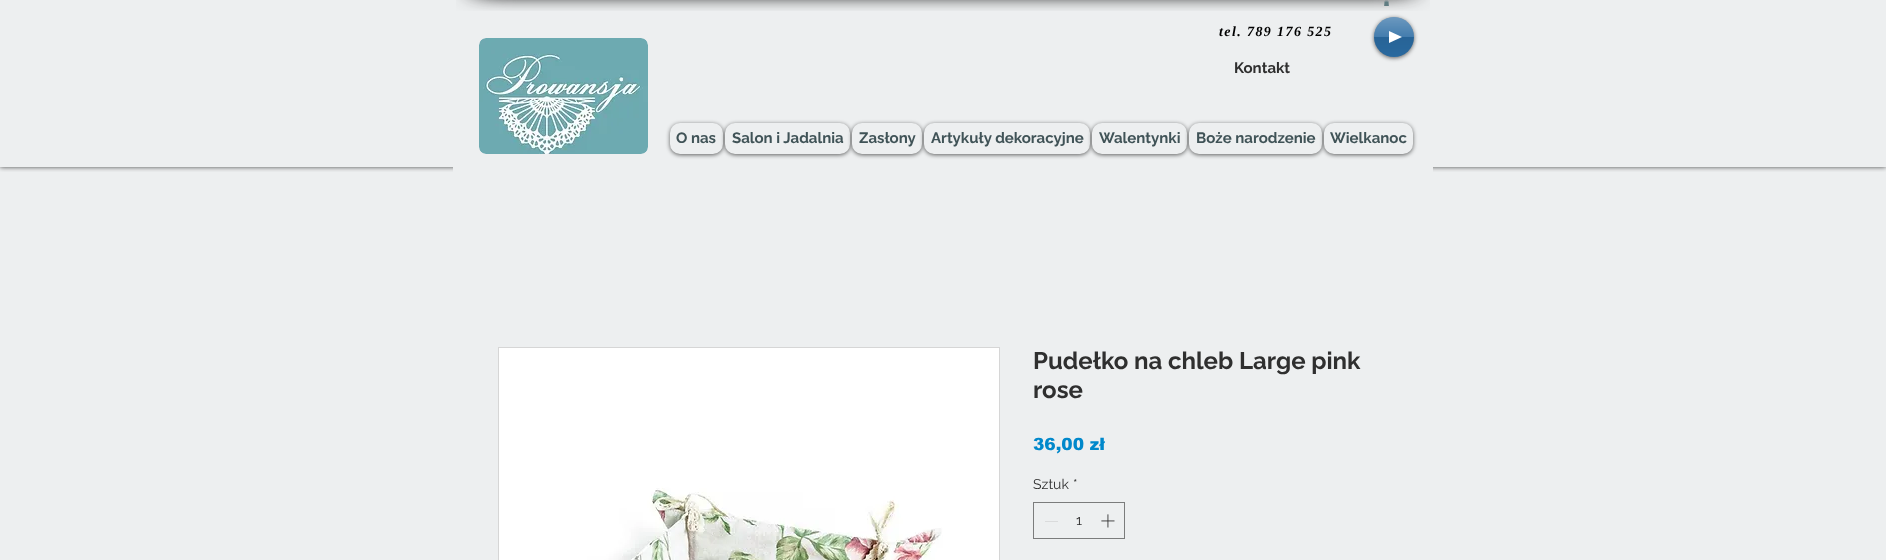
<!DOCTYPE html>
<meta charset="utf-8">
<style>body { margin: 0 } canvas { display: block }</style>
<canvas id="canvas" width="1886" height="560"></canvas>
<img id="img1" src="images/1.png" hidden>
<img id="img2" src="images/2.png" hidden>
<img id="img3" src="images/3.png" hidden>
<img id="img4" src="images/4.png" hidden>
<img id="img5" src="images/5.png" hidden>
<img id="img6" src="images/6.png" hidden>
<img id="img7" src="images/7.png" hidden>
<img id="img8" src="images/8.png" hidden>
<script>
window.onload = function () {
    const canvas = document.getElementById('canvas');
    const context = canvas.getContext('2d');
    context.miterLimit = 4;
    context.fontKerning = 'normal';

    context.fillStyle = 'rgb(237, 239, 240)';
    context.fillRect(0, 0, 1886, 560);
    context.drawImage(document.getElementById('img1'), 456, 0, 97, 11);
    context.drawImage(document.getElementById('img2'), 553, 0, 780, 11);
    context.drawImage(document.getElementById('img3'), 1333, 0, 97, 11);
    context.save();
    context.beginPath();
    context.rect(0, 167, 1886, 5);
    context.clip();
    context.fillStyle = 'rgba(0, 0, 0, 0.7)';
    context.filter = 'blur(2.5px)';
    context.beginPath();
    context.rect(0, 0, 1886, 167);
    context.fill();
    context.filter = 'none';
    context.restore();
    context.drawImage(document.getElementById('img4'), 1384, 0, 5, 6);
    context.fillStyle = 'rgba(0, 0, 0, 0.6)';
    context.filter = 'blur(2px)';
    context.beginPath();
    context.roundRect(1374, 18, 40, 40, 20);
    context.fill();
    context.filter = 'none';
    context.fillStyle = 'rgb(43, 108, 163)';
    context.beginPath();
    context.arc(1394, 37, 20, 0, 2 * Math.PI);
    context.fill();
    context.drawImage(document.getElementById('img5'), 1374, 17, 40, 39);
    context.fillStyle = 'rgb(255, 255, 255)';
    context.beginPath();
    context.moveTo(1389, 43);
    context.lineTo(1389, 31);
    context.lineTo(1402, 37);
    context.closePath();
    context.fill();
    context.drawImage(document.getElementById('img6'), 479, 38, 169, 116);
    context.fillStyle = 'rgba(0, 0, 0, 0.6)';
    context.filter = 'blur(2px)';
    context.beginPath();
    context.roundRect(670, 124, 53, 31, 10);
    context.fill();
    context.filter = 'none';
    context.fillStyle = 'rgb(237, 239, 240)';
    context.beginPath();
    context.roundRect(670, 123, 53, 31, 10);
    context.fill();
    context.fillStyle = 'rgba(0, 0, 0, 0.6)';
    context.filter = 'blur(2px)';
    context.beginPath();
    context.roundRect(725, 124, 125, 31, 10);
    context.fill();
    context.filter = 'none';
    context.fillStyle = 'rgb(237, 239, 240)';
    context.beginPath();
    context.roundRect(725, 123, 125, 31, 10);
    context.fill();
    context.fillStyle = 'rgba(0, 0, 0, 0.6)';
    context.filter = 'blur(2px)';
    context.beginPath();
    context.roundRect(852, 124, 70, 31, 10);
    context.fill();
    context.filter = 'none';
    context.fillStyle = 'rgb(237, 239, 240)';
    context.beginPath();
    context.roundRect(852, 123, 70, 31, 10);
    context.fill();
    context.fillStyle = 'rgba(0, 0, 0, 0.6)';
    context.filter = 'blur(2px)';
    context.beginPath();
    context.roundRect(924, 124, 166, 31, 10);
    context.fill();
    context.filter = 'none';
    context.fillStyle = 'rgb(237, 239, 240)';
    context.beginPath();
    context.roundRect(924, 123, 166, 31, 10);
    context.fill();
    context.fillStyle = 'rgba(0, 0, 0, 0.6)';
    context.filter = 'blur(2px)';
    context.beginPath();
    context.roundRect(1092, 124, 95, 31, 10);
    context.fill();
    context.filter = 'none';
    context.fillStyle = 'rgb(237, 239, 240)';
    context.beginPath();
    context.roundRect(1092, 123, 95, 31, 10);
    context.fill();
    context.fillStyle = 'rgba(0, 0, 0, 0.6)';
    context.filter = 'blur(2px)';
    context.beginPath();
    context.roundRect(1189, 124, 133, 31, 10);
    context.fill();
    context.filter = 'none';
    context.fillStyle = 'rgb(237, 239, 240)';
    context.beginPath();
    context.roundRect(1189, 123, 133, 31, 10);
    context.fill();
    context.fillStyle = 'rgba(0, 0, 0, 0.6)';
    context.filter = 'blur(2px)';
    context.beginPath();
    context.roundRect(1324, 124, 89, 31, 10);
    context.fill();
    context.filter = 'none';
    context.fillStyle = 'rgb(237, 239, 240)';
    context.beginPath();
    context.roundRect(1324, 123, 89, 31, 10);
    context.fill();
    context.fillRect(453, 167, 980, 5);
    context.strokeStyle = 'rgb(214, 214, 214)';
    context.strokeRect(498.5, 347.5, 501, 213);
    context.drawImage(document.getElementById('img7'), 499, 348, 500, 212);
    context.strokeStyle = 'rgb(123, 124, 124)';
    context.strokeRect(1033.5, 502.5, 91, 36);
    context.fillStyle = 'rgb(218, 219, 220)';
    context.fillRect(1045, 521, 13, 1);
    context.drawImage(document.getElementById('img8'), 1101, 514, 14, 14);
    context.letterSpacing = '1.4px';
    context.font = 'italic bold 14px Liberation Serif';
    context.fillStyle = 'rgb(0, 0, 0)';
    context.fillText('tel. 789 176 525', 1219, 36);
    context.letterSpacing = '0px';
    context.font = 'bold 15px Raleway';
    context.fillStyle = 'rgb(47, 47, 47)';
    context.fillText('Kontakt', 1234, 73);
    context.fillStyle = 'rgb(64, 83, 87)';
    context.fillText('O nas', 676, 143);
    context.fillText('Salon i Jadalnia', 732, 143);
    context.fillText('Zasłony', 859, 143);
    context.fillText('Artykuły dekoracyjne', 931, 143);
    context.fillText('Walentynki', 1099, 143);
    context.fillText('Boże narodzenie', 1196, 143);
    context.fillText('Wielkanoc', 1330, 143);
    context.font = 'bold 24px Raleway';
    context.fillStyle = 'rgb(47, 47, 47)';
    context.fillText('Pudełko na chleb Large pink', 1033, 369);
    context.fillText('rose', 1033, 398);
    context.font = '900 17px arial';
    context.fillStyle = 'rgb(0, 136, 203)';
    context.fillText('36,00 zł', 1033, 450);
    context.font = '14px Raleway';
    context.fillStyle = 'rgb(47, 47, 47)';
    context.fillText('Sztuk', 1033, 489);
    context.fillText('*', 1073, 489);
    context.fillText('1', 1076, 525);
};
</script>
